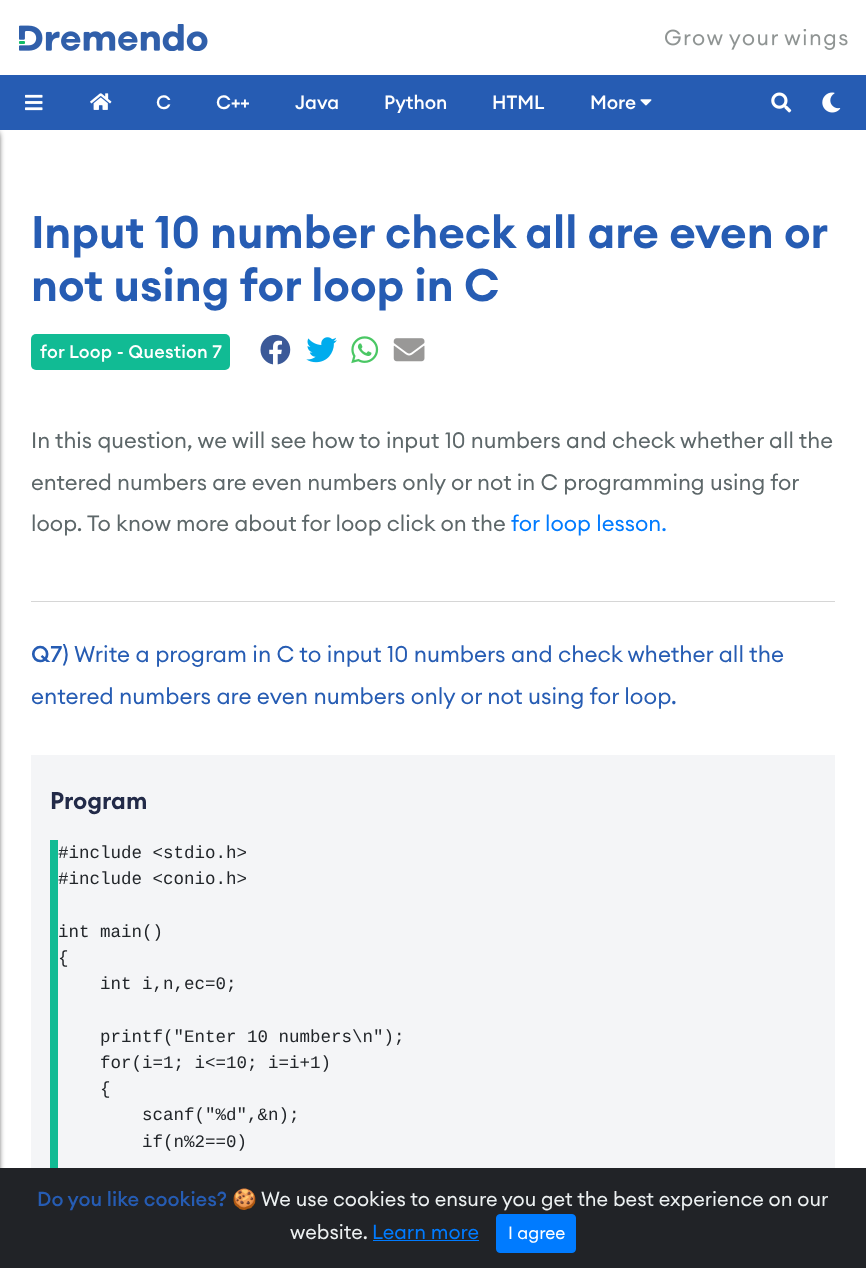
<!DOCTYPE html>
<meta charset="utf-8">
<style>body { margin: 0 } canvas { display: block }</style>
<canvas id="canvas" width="866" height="1268"></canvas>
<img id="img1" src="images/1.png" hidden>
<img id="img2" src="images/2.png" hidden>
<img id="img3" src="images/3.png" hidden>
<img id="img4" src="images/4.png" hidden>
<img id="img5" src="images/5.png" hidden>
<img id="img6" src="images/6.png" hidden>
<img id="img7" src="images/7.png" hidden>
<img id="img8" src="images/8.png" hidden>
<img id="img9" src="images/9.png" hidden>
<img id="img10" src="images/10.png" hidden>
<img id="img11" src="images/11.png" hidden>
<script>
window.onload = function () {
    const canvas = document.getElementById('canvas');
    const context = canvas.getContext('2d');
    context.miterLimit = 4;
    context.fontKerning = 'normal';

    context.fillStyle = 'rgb(255, 255, 255)';
    context.fillRect(0, 0, 866, 1268);
    context.drawImage(document.getElementById('img1'), 19, 24, 189, 27);
    context.drawImage(document.getElementById('img2'), 665, 29, 183, 21);
    context.fillStyle = 'rgb(0, 0, 0)';
    context.filter = 'blur(3px)';
    context.beginPath();
    context.rect(-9, 133, 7, 1133);
    context.fill();
    context.filter = 'none';
    context.fillStyle = 'rgb(38, 92, 179)';
    context.fillRect(0, 75, 866, 55);
    context.drawImage(document.getElementById('img3'), 25, 94, 18, 17);
    context.drawImage(document.getElementById('img4'), 90, 93, 22, 17);
    context.drawImage(document.getElementById('img5'), 640, 99, 12, 7);
    context.drawImage(document.getElementById('img6'), 771, 92, 21, 21);
    context.drawImage(document.getElementById('img7'), 822, 92, 19, 21);
    context.fillStyle = 'rgb(17, 187, 148)';
    context.beginPath();
    context.roundRect(31, 334, 199, 36, 5);
    context.fill();
    context.drawImage(document.getElementById('img8'), 260, 334, 31, 31);
    context.drawImage(document.getElementById('img9'), 306, 337, 31, 26);
    context.drawImage(document.getElementById('img10'), 351, 336, 28, 28);
    context.drawImage(document.getElementById('img11'), 393, 338, 32, 24);
    context.fillStyle = 'rgb(214, 214, 214)';
    context.fillRect(31, 601, 804, 1);
    context.fillStyle = 'rgb(244, 245, 247)';
    context.fillRect(31, 755, 804, 413);
    context.fillStyle = 'rgb(17, 187, 148)';
    context.fillRect(50, 840, 8, 328);
    context.fillStyle = 'rgb(33, 35, 39)';
    context.fillRect(0, 1168, 866, 100);
    context.fillStyle = 'rgb(0, 123, 255)';
    context.fillRect(373, 1240, 106, 1);
    context.beginPath();
    context.roundRect(496.5, 1214.5, 79, 38, 3.5);
    context.fill();
    context.strokeStyle = 'rgb(0, 123, 255)';
    context.stroke();
    context.font = '500 19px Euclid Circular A';
    context.fillStyle = 'rgb(255, 255, 255)';
    context.fillText('C', 156, 109);
    context.fillText('C++', 216, 109);
    context.fillText('Java', 295, 109);
    context.fillText('Python', 384, 109);
    context.fillText('HTML', 492, 109);
    context.fillText('More', 590, 109);
    context.font = '600 45px Euclid Circular A';
    context.fillStyle = 'rgb(38, 92, 179)';
    context.fillText('Input 10 number check all are even or', 31, 248);
    context.fillText('not using for loop in C', 31, 301);
    context.letterSpacing = '0.2px';
    context.font = '500 18px Euclid Circular A';
    context.fillStyle = 'rgb(255, 255, 255)';
    context.fillText('for Loop - Question 7', 40, 358);
    context.letterSpacing = '0px';
    context.font = '22px Euclid Circular A';
    context.fillStyle = 'rgb(93, 103, 105)';
    context.fillText('In this question, we will see how to input 10 numbers and check whether all the', 31, 448);
    context.fillText('entered numbers are even numbers only or not in C programming using for', 31, 490);
    context.fillText('loop. To know more about for loop click on the', 31, 531);
    context.fillStyle = 'rgb(0, 123, 255)';
    context.fillText('for loop lesson.', 511, 531);
    context.font = '500 22.5px Euclid Circular A';
    context.fillStyle = 'rgb(38, 92, 179)';
    context.fillText('Q7)', 31, 662);
    context.font = '22.5px Euclid Circular A';
    context.fillText('Write a program in C to input 10 numbers and check whether all the', 74, 662);
    context.fillText('entered numbers are even numbers only or not using for loop.', 31, 704);
    context.font = '600 24px Euclid Circular A';
    context.fillStyle = 'rgb(34, 42, 72)';
    context.fillText('Program', 50, 809);
    context.font = '17.5px Liberation Mono';
    context.fillStyle = 'rgb(33, 37, 41)';
    context.fillText('#include <stdio.h>', 58, 858);
    context.fillText('#include <conio.h>', 58, 884);
    context.fillText('int main()', 58, 937);
    context.fillText('{', 58, 963);
    context.fillText('int i,n,ec=0;', 100, 989);
    context.fillText('printf("Enter 10 numbers\\n");', 100, 1042);
    context.fillText('for(i=1; i<=10; i=i+1)', 100, 1068);
    context.fillText('{', 100, 1094);
    context.fillText('scanf("%d",&n);', 142, 1120);
    context.fillText('if(n%2==0)', 142, 1147);
    context.font = '500 20px Euclid Circular A';
    context.fillStyle = 'rgb(38, 92, 179)';
    context.fillText('Do you like cookies?', 37, 1206);
    context.font = '20px Noto Color Emoji';
    context.fillStyle = 'rgb(236, 240, 241)';
    context.fillText('🍪', 232, 1206);
    context.font = '20px Euclid Circular A';
    context.fillText('We use cookies to ensure you get the best experience on our', 261, 1206);
    context.fillText('website.', 290, 1239);
    context.fillStyle = 'rgb(0, 123, 255)';
    context.fillText('Learn more', 372, 1239);
    context.font = '17.5px Euclid Circular A';
    context.fillStyle = 'rgb(255, 255, 255)';
    context.fillText('I agree', 508, 1239);
};
</script>
